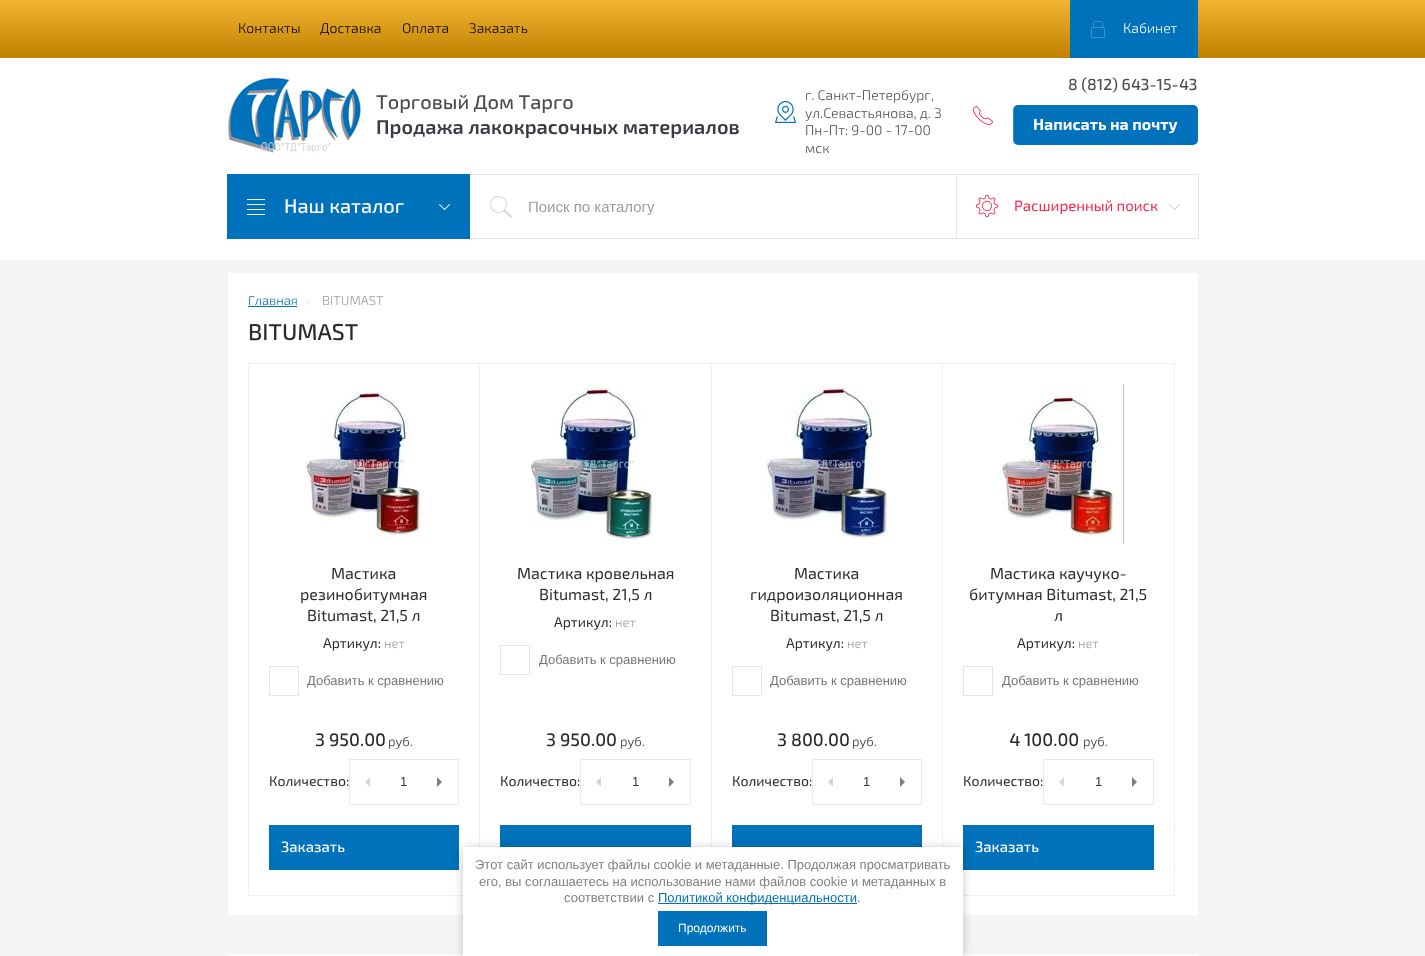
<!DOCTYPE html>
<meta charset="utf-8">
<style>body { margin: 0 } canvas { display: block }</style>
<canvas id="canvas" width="1425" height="956"></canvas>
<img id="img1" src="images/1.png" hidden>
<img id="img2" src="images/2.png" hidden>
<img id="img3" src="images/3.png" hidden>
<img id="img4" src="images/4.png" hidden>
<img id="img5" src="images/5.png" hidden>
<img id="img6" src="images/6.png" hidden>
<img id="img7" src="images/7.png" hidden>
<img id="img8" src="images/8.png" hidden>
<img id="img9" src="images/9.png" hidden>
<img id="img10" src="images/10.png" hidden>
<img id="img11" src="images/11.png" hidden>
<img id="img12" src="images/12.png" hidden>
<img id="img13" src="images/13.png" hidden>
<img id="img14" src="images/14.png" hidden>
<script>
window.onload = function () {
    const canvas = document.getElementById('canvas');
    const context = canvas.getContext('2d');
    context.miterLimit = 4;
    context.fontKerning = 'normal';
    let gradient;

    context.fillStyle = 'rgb(247, 244, 244)';
    context.fillRect(0, 0, 1425, 956);
    gradient = context.createLinearGradient(713, 58, 713, 0);
    gradient.addColorStop(0, 'rgb(192, 128, 0)');
    gradient.addColorStop(1, 'rgb(243, 179, 51)');
    context.fillStyle = gradient;
    context.fillRect(0, 0, 1425, 58);
    context.fillStyle = 'rgb(0, 113, 187)';
    context.fillRect(1070, 0, 128, 58);
    context.drawImage(document.getElementById('img1'), 1091, 21, 14, 17);
    context.fillStyle = 'rgb(255, 255, 255)';
    context.fillRect(0, 58, 1425, 202);
    context.drawImage(document.getElementById('img2'), 228, 77, 135, 76);
    context.drawImage(document.getElementById('img3'), 775, 101, 21, 22);
    context.drawImage(document.getElementById('img4'), 973, 106, 20, 19);
    context.fillStyle = 'rgb(0, 113, 187)';
    context.beginPath();
    context.roundRect(1013, 105, 185, 40, 5);
    context.fill();
    context.fillStyle = 'rgba(255, 255, 255, 0.2)';
    context.beginPath();
    context.moveTo(1018, 105);
    context.bezierCurveTo(1015, 105, 1013, 107, 1013, 110);
    context.lineTo(1013, 140);
    context.bezierCurveTo(1013, 143, 1015, 145, 1018, 145);
    context.lineTo(1019, 145);
    context.bezierCurveTo(1016, 145, 1014, 143, 1014, 140);
    context.lineTo(1014, 110);
    context.bezierCurveTo(1014, 107, 1016, 105, 1019, 105);
    context.closePath();
    context.fill();
    context.strokeStyle = 'rgb(228, 228, 228)';
    context.strokeRect(227.5, 174.5, 971, 64);
    context.fillStyle = 'rgb(0, 113, 187)';
    context.fillRect(227, 174, 243, 65);
    context.drawImage(document.getElementById('img5'), 247, 199, 18, 16);
    context.drawImage(document.getElementById('img6'), 439, 204, 11, 6);
    context.drawImage(document.getElementById('img7'), 490, 196, 22, 22);
    context.fillStyle = 'rgb(228, 228, 228)';
    context.fillRect(956, 174, 1, 64);
    context.drawImage(document.getElementById('img8'), 976, 195, 22, 22);
    context.drawImage(document.getElementById('img9'), 1169, 204, 11, 6);
    context.fillStyle = 'rgb(255, 255, 255)';
    context.fillRect(228, 273, 970, 642);
    context.fillStyle = 'rgb(0, 113, 187)';
    context.fillRect(248, 306, 49, 1);
    context.drawImage(document.getElementById('img10'), 306, 298, 4, 7);
    context.strokeStyle = 'rgb(240, 240, 240)';
    context.strokeRect(248.5, 363.5, 231, 532);
    context.drawImage(document.getElementById('img11'), 305, 384, 116, 157);
    context.strokeStyle = 'rgb(230, 230, 230)';
    context.strokeRect(269.5, 666.5, 29, 29);
    context.strokeStyle = 'rgb(234, 234, 234)';
    context.strokeRect(349.5, 759.5, 109, 45);
    context.fillStyle = 'rgb(214, 214, 214)';
    context.beginPath();
    context.moveTo(370, 777);
    context.lineTo(370, 787);
    context.lineTo(365, 782);
    context.closePath();
    context.fill();
    context.fillStyle = 'rgb(126, 126, 126)';
    context.beginPath();
    context.moveTo(437, 787);
    context.lineTo(437, 777);
    context.lineTo(442, 782);
    context.closePath();
    context.fill();
    context.fillStyle = 'rgb(0, 113, 187)';
    context.fillRect(269, 825, 190, 45);
    context.strokeStyle = 'rgb(240, 240, 240)';
    context.strokeRect(479.5, 363.5, 232, 532);
    context.drawImage(document.getElementById('img12'), 528, 384, 128, 160);
    context.strokeStyle = 'rgb(230, 230, 230)';
    context.strokeRect(500.5, 645.5, 29, 29);
    context.strokeStyle = 'rgb(234, 234, 234)';
    context.strokeRect(580.5, 759.5, 110, 45);
    context.fillStyle = 'rgb(214, 214, 214)';
    context.beginPath();
    context.moveTo(601, 777);
    context.lineTo(601, 787);
    context.lineTo(596, 782);
    context.closePath();
    context.fill();
    context.fillStyle = 'rgb(126, 126, 126)';
    context.beginPath();
    context.moveTo(669, 787);
    context.lineTo(669, 777);
    context.lineTo(674, 782);
    context.closePath();
    context.fill();
    context.fillStyle = 'rgb(0, 113, 187)';
    context.fillRect(500, 825, 191, 22);
    context.strokeStyle = 'rgb(240, 240, 240)';
    context.strokeRect(711.5, 363.5, 231, 532);
    context.drawImage(document.getElementById('img13'), 766, 384, 122, 156);
    context.strokeStyle = 'rgb(230, 230, 230)';
    context.strokeRect(732.5, 666.5, 29, 29);
    context.strokeStyle = 'rgb(234, 234, 234)';
    context.strokeRect(812.5, 759.5, 109, 45);
    context.fillStyle = 'rgb(214, 214, 214)';
    context.beginPath();
    context.moveTo(833, 777);
    context.lineTo(833, 787);
    context.lineTo(828, 782);
    context.closePath();
    context.fill();
    context.fillStyle = 'rgb(126, 126, 126)';
    context.beginPath();
    context.moveTo(900, 787);
    context.lineTo(900, 777);
    context.lineTo(905, 782);
    context.closePath();
    context.fill();
    context.fillStyle = 'rgb(0, 113, 187)';
    context.fillRect(732, 825, 190, 22);
    context.strokeStyle = 'rgb(240, 240, 240)';
    context.strokeRect(942.5, 363.5, 232, 532);
    context.drawImage(document.getElementById('img14'), 1000, 384, 124, 160);
    context.strokeStyle = 'rgb(230, 230, 230)';
    context.strokeRect(963.5, 666.5, 29, 29);
    context.strokeStyle = 'rgb(234, 234, 234)';
    context.strokeRect(1043.5, 759.5, 110, 45);
    context.fillStyle = 'rgb(214, 214, 214)';
    context.beginPath();
    context.moveTo(1064, 777);
    context.lineTo(1064, 787);
    context.lineTo(1059, 782);
    context.closePath();
    context.fill();
    context.fillStyle = 'rgb(126, 126, 126)';
    context.beginPath();
    context.moveTo(1132, 787);
    context.lineTo(1132, 777);
    context.lineTo(1137, 782);
    context.closePath();
    context.fill();
    context.fillStyle = 'rgb(0, 113, 187)';
    context.fillRect(963, 825, 191, 45);
    context.fillStyle = 'rgb(255, 255, 255)';
    context.fillRect(228, 955, 970, 1);
    context.fillStyle = 'rgba(0, 0, 0, 0.23)';
    context.filter = 'blur(5px)';
    context.beginPath();
    context.rect(463, 848, 500, 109);
    context.fill();
    context.filter = 'none';
    context.fillStyle = 'rgb(255, 255, 255)';
    context.fillRect(463, 847, 500, 109);
    context.fillStyle = 'rgb(0, 113, 187)';
    context.fillRect(658, 903, 199, 1);
    context.fillRect(658, 911, 109, 35);
    context.font = '300 14px "Exo 2"';
    context.fillStyle = 'rgb(0, 0, 0)';
    context.fillText('Контакты', 238, 33);
    context.fillText('Доставка', 320, 33);
    context.fillText('Оплата', 402, 33);
    context.fillText('Заказать', 469, 33);
    context.fillStyle = 'rgb(255, 255, 255)';
    context.fillText('Кабинет', 1123, 33);
    context.font = '500 20px "Exo 2"';
    context.fillStyle = 'rgb(77, 75, 80)';
    context.fillText('Торговый Дом Тарго', 376, 109);
    context.font = '600 20px "Exo 2"';
    context.fillStyle = 'rgb(60, 57, 64)';
    context.fillText('Продажа лакокрасочных материалов', 376, 134);
    context.font = '300 14px "Exo 2"';
    context.fillStyle = 'rgb(84, 77, 70)';
    context.fillText('г. Санкт-Петербург,', 805, 100);
    context.fillText('ул.Севастьянова, д. 3', 805, 118);
    context.fillText('Пн-Пт: 9-00 - 17-00', 805, 135);
    context.fillText('мск', 805, 153);
    context.font = '500 16px "Exo 2"';
    context.fillStyle = 'rgb(77, 75, 80)';
    context.fillText('8 (812) 643-15-43', 1068, 90);
    context.font = 'bold 16px "Exo 2"';
    context.fillStyle = 'rgb(255, 255, 255)';
    context.fillText('Написать на почту', 1033, 130);
    context.font = '500 20px "Exo 2"';
    context.fillText('Наш каталог', 284, 213);
    context.font = '15px Liberation Sans';
    context.fillStyle = 'rgb(157, 157, 157)';
    context.fillText('Поиск по каталогу', 528, 212);
    context.font = '15px "Exo 2"';
    context.fillStyle = 'rgb(254, 39, 73)';
    context.fillText('Расширенный поиск', 1014, 211);
    context.font = '300 13px "Exo 2"';
    context.fillStyle = 'rgb(0, 113, 187)';
    context.fillText('Главная', 248, 305);
    context.fillStyle = 'rgb(157, 157, 157)';
    context.fillText('BITUMAST', 322, 305);
    context.font = '500 23px "Exo 2"';
    context.fillStyle = 'rgb(43, 41, 46)';
    context.fillText('BITUMAST', 248, 340);
    context.font = '16px "Exo 2"';
    context.fillText('Мастика', 331, 579);
    context.fillText('резинобитумная', 300, 600);
    context.fillText('Bitumast, 21,5 л', 307, 621);
    context.font = '14px "Exo 2"';
    context.fillText('Артикул:', 323, 648);
    context.font = '300 13px "Exo 2"';
    context.fillStyle = 'rgb(157, 157, 157)';
    context.fillText('нет', 384, 648);
    context.font = '13px Liberation Sans';
    context.fillStyle = 'rgb(118, 118, 118)';
    context.fillText('Добавить к сравнению', 307, 685);
    context.font = '500 18px "Exo 2"';
    context.fillStyle = 'rgb(43, 41, 46)';
    context.fillText('3 950.00', 315, 746);
    context.font = '300 13px "Exo 2"';
    context.fillText('руб.', 388, 746);
    context.font = '14px "Exo 2"';
    context.fillText('Количество:', 269, 786);
    context.font = '13px Liberation Sans';
    context.fillStyle = 'rgb(60, 57, 64)';
    context.fillText('1', 400, 786);
    context.font = '500 15px "Exo 2"';
    context.fillStyle = 'rgb(255, 255, 255)';
    context.fillText('Заказать', 281, 852);
    context.font = '16px "Exo 2"';
    context.fillStyle = 'rgb(43, 41, 46)';
    context.fillText('Мастика кровельная', 517, 579);
    context.fillText('Bitumast, 21,5 л', 539, 600);
    context.font = '14px "Exo 2"';
    context.fillText('Артикул:', 554, 627);
    context.font = '300 13px "Exo 2"';
    context.fillStyle = 'rgb(157, 157, 157)';
    context.fillText('нет', 615, 627);
    context.font = '13px Liberation Sans';
    context.fillStyle = 'rgb(118, 118, 118)';
    context.fillText('Добавить к сравнению', 539, 664);
    context.font = '500 18px "Exo 2"';
    context.fillStyle = 'rgb(43, 41, 46)';
    context.fillText('3 950.00', 546, 746);
    context.font = '300 13px "Exo 2"';
    context.fillText('руб.', 620, 746);
    context.font = '14px "Exo 2"';
    context.fillText('Количество:', 500, 786);
    context.font = '13px Liberation Sans';
    context.fillStyle = 'rgb(60, 57, 64)';
    context.fillText('1', 632, 786);
    context.font = '16px "Exo 2"';
    context.fillStyle = 'rgb(43, 41, 46)';
    context.fillText('Мастика', 794, 579);
    context.fillText('гидроизоляционная', 750, 600);
    context.fillText('Bitumast, 21,5 л', 770, 621);
    context.font = '14px "Exo 2"';
    context.fillText('Артикул:', 786, 648);
    context.font = '300 13px "Exo 2"';
    context.fillStyle = 'rgb(157, 157, 157)';
    context.fillText('нет', 847, 648);
    context.font = '13px Liberation Sans';
    context.fillStyle = 'rgb(118, 118, 118)';
    context.fillText('Добавить к сравнению', 770, 685);
    context.font = '500 18px "Exo 2"';
    context.fillStyle = 'rgb(43, 41, 46)';
    context.fillText('3 800.00', 777, 746);
    context.font = '300 13px "Exo 2"';
    context.fillText('руб.', 852, 746);
    context.font = '14px "Exo 2"';
    context.fillText('Количество:', 732, 786);
    context.font = '13px Liberation Sans';
    context.fillStyle = 'rgb(60, 57, 64)';
    context.fillText('1', 863, 786);
    context.font = '16px "Exo 2"';
    context.fillStyle = 'rgb(43, 41, 46)';
    context.fillText('Мастика каучуко-', 990, 579);
    context.fillText('битумная Bitumast, 21,5', 969, 600);
    context.fillText('л', 1054, 621);
    context.font = '14px "Exo 2"';
    context.fillText('Артикул:', 1017, 648);
    context.font = '300 13px "Exo 2"';
    context.fillStyle = 'rgb(157, 157, 157)';
    context.fillText('нет', 1078, 648);
    context.font = '13px Liberation Sans';
    context.fillStyle = 'rgb(118, 118, 118)';
    context.fillText('Добавить к сравнению', 1002, 685);
    context.font = '500 18px "Exo 2"';
    context.fillStyle = 'rgb(43, 41, 46)';
    context.fillText('4 100.00', 1009, 746);
    context.font = '300 13px "Exo 2"';
    context.fillText('руб.', 1083, 746);
    context.font = '14px "Exo 2"';
    context.fillText('Количество:', 963, 786);
    context.font = '13px Liberation Sans';
    context.fillStyle = 'rgb(60, 57, 64)';
    context.fillText('1', 1095, 786);
    context.font = '500 15px "Exo 2"';
    context.fillStyle = 'rgb(255, 255, 255)';
    context.fillText('Заказать', 975, 852);
    context.font = '13px Liberation Sans';
    context.fillStyle = 'rgb(128, 128, 128)';
    context.fillText('Этот сайт использует файлы cookie и метаданные. Продолжая просматривать', 475, 869);
    context.fillText('его, вы соглашаетесь на использование нами файлов cookie и метаданных в', 479, 886);
    context.fillText('соответствии с', 564, 902);
    context.fillStyle = 'rgb(0, 113, 187)';
    context.fillText('Политикой конфиденциальности', 658, 902);
    context.fillStyle = 'rgb(128, 128, 128)';
    context.fillText('.', 857, 902);
    context.font = '12px Liberation Sans';
    context.fillStyle = 'rgb(255, 255, 255)';
    context.fillText('Продолжить', 678, 932);
};
</script>
